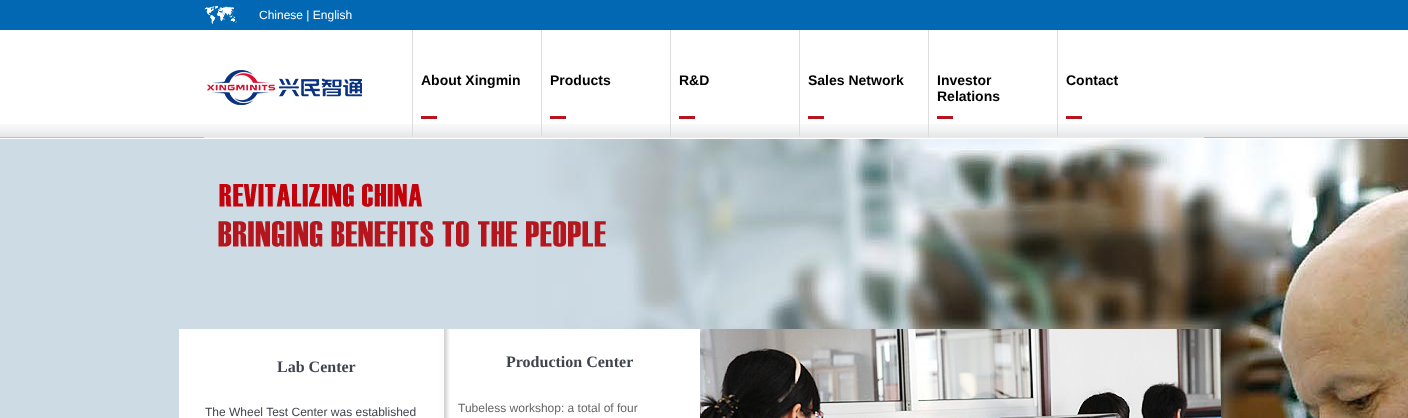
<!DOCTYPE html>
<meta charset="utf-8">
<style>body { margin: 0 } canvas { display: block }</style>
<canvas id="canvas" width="1408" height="418"></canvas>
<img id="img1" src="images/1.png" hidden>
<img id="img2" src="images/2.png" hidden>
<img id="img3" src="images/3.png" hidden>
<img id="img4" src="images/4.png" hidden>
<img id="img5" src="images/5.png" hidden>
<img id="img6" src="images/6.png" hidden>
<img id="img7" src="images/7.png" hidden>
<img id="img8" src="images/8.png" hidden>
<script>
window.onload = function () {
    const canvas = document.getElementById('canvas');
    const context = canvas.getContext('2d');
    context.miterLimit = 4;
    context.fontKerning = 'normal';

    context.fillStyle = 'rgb(255, 255, 255)';
    context.fillRect(0, 0, 1408, 418);
    context.fillStyle = 'rgb(2, 104, 180)';
    context.fillRect(0, 0, 1408, 30);
    context.drawImage(document.getElementById('img1'), 204, 6, 33, 18);
    context.drawImage(document.getElementById('img2'), 0, 124, 1408, 14);
    context.fillStyle = 'rgb(235, 235, 235)';
    context.fillRect(204, 137, 1000, 1);
    context.drawImage(document.getElementById('img3'), 206, 70, 156, 35);
    context.fillStyle = 'rgb(181, 21, 29)';
    context.fillRect(421, 116, 16, 3);
    context.fillStyle = 'rgb(221, 221, 221)';
    context.fillRect(412, 30, 1, 107);
    context.fillStyle = 'rgb(181, 21, 29)';
    context.fillRect(550, 116, 16, 3);
    context.fillStyle = 'rgb(221, 221, 221)';
    context.fillRect(541, 30, 1, 107);
    context.fillStyle = 'rgb(181, 21, 29)';
    context.fillRect(679, 116, 16, 3);
    context.fillStyle = 'rgb(221, 221, 221)';
    context.fillRect(670, 30, 1, 107);
    context.fillStyle = 'rgb(181, 21, 29)';
    context.fillRect(808, 116, 16, 3);
    context.fillStyle = 'rgb(221, 221, 221)';
    context.fillRect(799, 30, 1, 107);
    context.fillStyle = 'rgb(181, 21, 29)';
    context.fillRect(937, 116, 16, 3);
    context.fillStyle = 'rgb(221, 221, 221)';
    context.fillRect(928, 30, 1, 107);
    context.fillStyle = 'rgb(181, 21, 29)';
    context.fillRect(1066, 116, 16, 3);
    context.fillStyle = 'rgb(221, 221, 221)';
    context.fillRect(1057, 30, 1, 107);
    context.drawImage(document.getElementById('img4'), 0, 139, 1408, 279);
    context.drawImage(document.getElementById('img5'), 218, 183, 388, 64);
    context.drawImage(document.getElementById('img6'), 1221, 330, 3, 88);
    context.fillStyle = 'rgb(255, 255, 255)';
    context.fillRect(441, 329, 259, 89);
    context.drawImage(document.getElementById('img7'), 179, 329, 271, 89);
    context.drawImage(document.getElementById('img8'), 700, 329, 521, 89);
    context.font = '12px Liberation Sans';
    context.fillText('Chinese | English', 259, 19);
    context.font = 'bold 14px Liberation Sans';
    context.fillStyle = 'rgb(0, 0, 0)';
    context.fillText('About Xingmin', 421, 85);
    context.fillText('Products', 550, 85);
    context.fillText('R&D', 679, 85);
    context.fillText('Sales Network', 808, 85);
    context.fillText('Investor', 937, 85);
    context.fillText('Relations', 937, 101);
    context.fillText('Contact', 1066, 85);
    context.font = 'bold 16px Liberation Serif';
    context.fillStyle = 'rgb(64, 68, 76)';
    context.fillText('Lab Center', 277, 372);
    context.font = '12px Liberation Sans';
    context.fillText('The Wheel Test Center was established', 205, 416);
    context.font = 'bold 16px Liberation Serif';
    context.fillText('Production Center', 506, 367);
    context.font = '12px Liberation Sans';
    context.fillStyle = 'rgb(102, 102, 102)';
    context.fillText('Tubeless workshop: a total of four', 458, 412);
};
</script>
